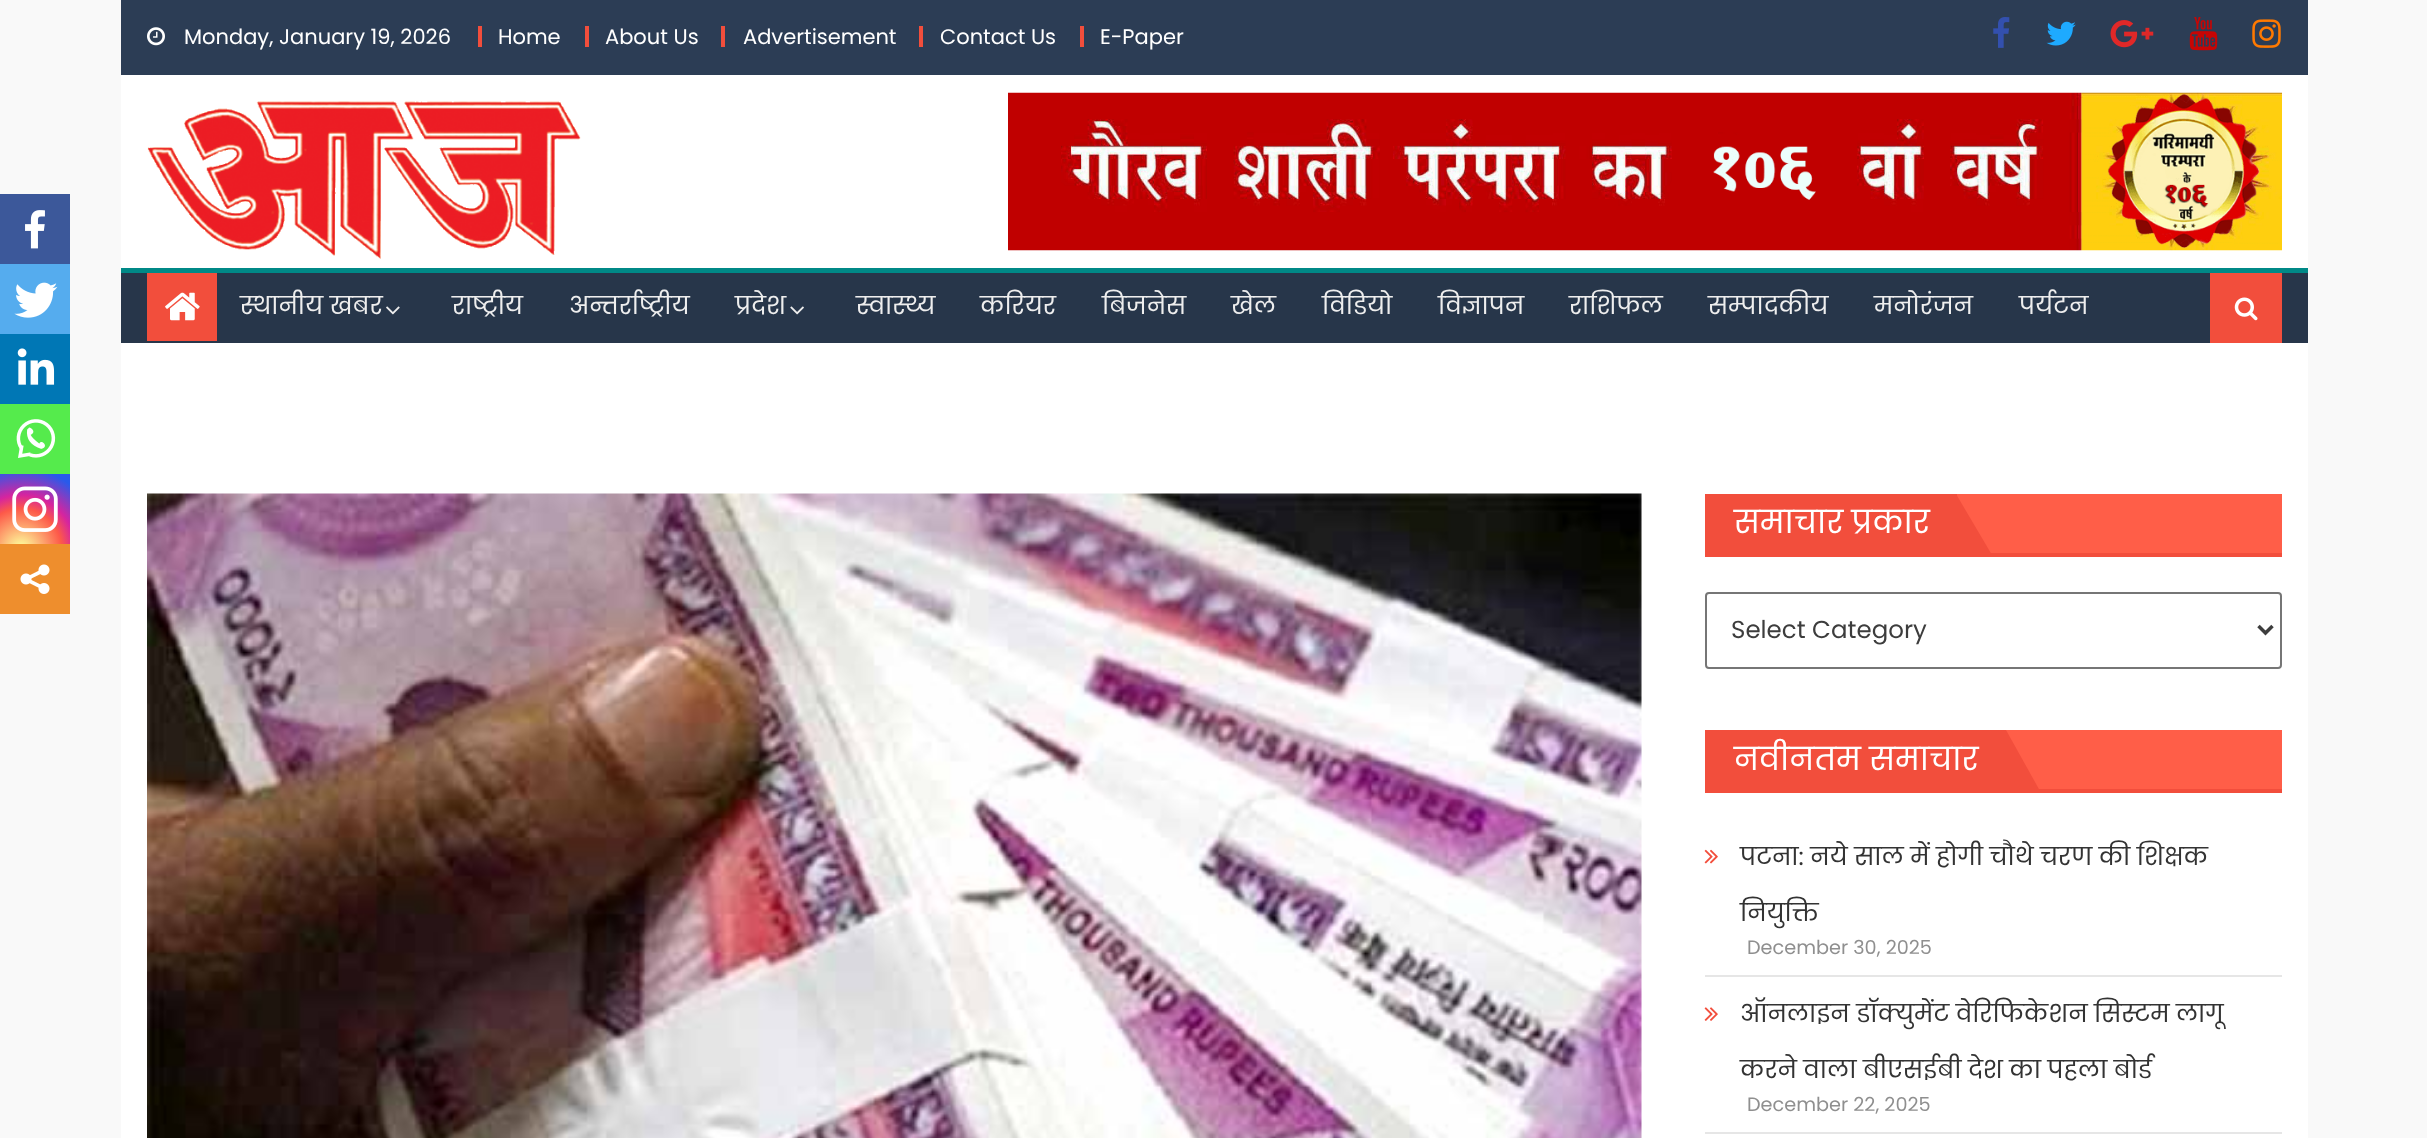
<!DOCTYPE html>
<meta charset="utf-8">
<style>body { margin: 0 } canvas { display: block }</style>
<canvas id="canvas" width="2427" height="1138"></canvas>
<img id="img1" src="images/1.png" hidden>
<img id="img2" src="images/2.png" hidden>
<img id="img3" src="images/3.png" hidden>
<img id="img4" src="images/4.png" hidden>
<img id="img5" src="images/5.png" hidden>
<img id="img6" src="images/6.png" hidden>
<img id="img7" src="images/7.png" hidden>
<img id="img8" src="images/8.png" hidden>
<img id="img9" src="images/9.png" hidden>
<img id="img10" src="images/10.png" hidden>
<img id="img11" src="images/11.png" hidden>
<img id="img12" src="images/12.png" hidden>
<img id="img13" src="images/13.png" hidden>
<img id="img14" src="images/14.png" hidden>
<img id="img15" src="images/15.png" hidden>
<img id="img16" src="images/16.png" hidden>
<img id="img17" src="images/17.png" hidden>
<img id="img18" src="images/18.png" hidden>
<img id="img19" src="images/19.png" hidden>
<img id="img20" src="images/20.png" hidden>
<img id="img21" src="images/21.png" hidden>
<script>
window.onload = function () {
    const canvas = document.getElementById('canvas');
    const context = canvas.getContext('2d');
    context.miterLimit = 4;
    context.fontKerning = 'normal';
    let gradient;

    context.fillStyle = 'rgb(249, 249, 249)';
    context.fillRect(0, 0, 2427, 1138);
    context.fillStyle = 'rgb(255, 255, 255)';
    context.fillRect(121, 75, 2187, 1063);
    context.fillStyle = 'rgb(44, 61, 85)';
    context.fillRect(121, 0, 2187, 75);
    context.drawImage(document.getElementById('img1'), 147, 27, 18, 19);
    context.fillStyle = 'rgb(242, 78, 60)';
    context.fillRect(478, 26, 4, 21);
    context.fillRect(585, 26, 4, 21);
    context.fillRect(721, 26, 4, 21);
    context.fillRect(919, 26, 4, 21);
    context.fillRect(1080, 26, 4, 21);
    context.drawImage(document.getElementById('img2'), 1993, 17, 17, 31);
    context.drawImage(document.getElementById('img3'), 2046, 21, 30, 25);
    context.drawImage(document.getElementById('img4'), 2110, 20, 44, 28);
    context.drawImage(document.getElementById('img5'), 2189, 17, 29, 34);
    context.drawImage(document.getElementById('img6'), 2252, 19, 29, 29);
    context.drawImage(document.getElementById('img7'), 147, 101, 434, 158);
    context.drawImage(document.getElementById('img8'), 1008, 92, 1274, 159);
    context.fillStyle = 'rgb(39, 54, 74)';
    context.fillRect(121, 273, 2187, 70);
    context.fillStyle = 'rgb(0, 137, 135)';
    context.fillRect(121, 268, 2187, 5);
    context.fillStyle = 'rgb(242, 78, 60)';
    context.fillRect(147, 273, 70, 68);
    context.drawImage(document.getElementById('img9'), 165, 292, 35, 29);
    context.drawImage(document.getElementById('img10'), 386, 306, 14, 9);
    context.drawImage(document.getElementById('img11'), 790, 306, 14, 9);
    context.fillRect(2210, 273, 72, 70);
    context.drawImage(document.getElementById('img12'), 2234, 297, 24, 24);
    context.fillStyle = 'rgb(60, 88, 154)';
    context.fillRect(0, 194, 70, 70);
    context.drawImage(document.getElementById('img13'), 25, 210, 20, 39);
    context.fillStyle = 'rgb(85, 172, 238)';
    context.fillRect(0, 264, 70, 70);
    context.drawImage(document.getElementById('img14'), 14, 282, 44, 36);
    context.fillStyle = 'rgb(0, 119, 181)';
    context.fillRect(0, 334, 70, 70);
    context.drawImage(document.getElementById('img15'), 17, 348, 38, 37);
    context.fillStyle = 'rgb(85, 235, 76)';
    context.fillRect(0, 404, 70, 70);
    context.drawImage(document.getElementById('img16'), 16, 419, 40, 39);
    gradient = context.createRadialGradient(21, 549, 0, 21, 549, 90);
    gradient.addColorStop(0, 'rgb(253, 244, 151)');
    gradient.addColorStop(0.05, 'rgb(253, 244, 151)');
    gradient.addColorStop(0.45, 'rgb(253, 89, 73)');
    gradient.addColorStop(0.6, 'rgb(214, 36, 159)');
    gradient.addColorStop(0.9, 'rgb(40, 90, 235)');
    context.fillStyle = gradient;
    context.fillRect(0, 474, 70, 70);
    context.drawImage(document.getElementById('img17'), 12, 486, 46, 46);
    context.fillStyle = 'rgb(238, 142, 45)';
    context.fillRect(0, 544, 70, 70);
    context.drawImage(document.getElementById('img18'), 20, 564, 30, 30);
    context.drawImage(document.getElementById('img19'), 147, 493, 1495, 645);
    context.fillStyle = 'rgb(255, 94, 72)';
    context.fillRect(1957, 494, 325, 59);
    context.fillStyle = 'rgb(242, 78, 60)';
    context.fillRect(1705, 553, 577, 4);
    context.fillRect(1705, 494, 4, 63);
    context.fillRect(1709, 494, 248, 59);
    context.beginPath();
    context.moveTo(1992, 555);
    context.lineTo(1956, 555);
    context.lineTo(1956, 494);
    context.closePath();
    context.fill();
    context.beginPath();
    context.roundRect(1706, 593, 575, 75, 3);
    context.strokeStyle = 'rgb(118, 118, 118)';
    context.lineWidth = 2;
    context.stroke();
    context.beginPath();
    context.moveTo(2258.5, 626);
    context.lineTo(2265.5, 633);
    context.lineTo(2272.5, 626);
    context.strokeStyle = 'rgb(61, 61, 61)';
    context.lineWidth = 3.5;
    context.stroke();
    context.fillStyle = 'rgb(255, 94, 72)';
    context.fillRect(2006, 730, 276, 59);
    context.fillStyle = 'rgb(242, 78, 60)';
    context.fillRect(1705, 789, 577, 4);
    context.fillRect(1705, 730, 4, 63);
    context.fillRect(1709, 730, 297, 59);
    context.beginPath();
    context.moveTo(2040, 791);
    context.lineTo(2006, 791);
    context.lineTo(2006, 730);
    context.closePath();
    context.fill();
    context.fillStyle = 'rgb(230, 230, 230)';
    context.fillRect(1705, 975, 577, 2);
    context.drawImage(document.getElementById('img20'), 1704, 849, 14, 15);
    context.fillRect(1705, 1132, 577, 2);
    context.drawImage(document.getElementById('img21'), 1704, 1007, 14, 14);
    context.font = '21px Poppins';
    context.fillStyle = 'rgb(255, 255, 255)';
    context.fillText('Monday, January 19, 2026', 184, 44);
    context.fillText('Home', 498, 44);
    context.fillText('About Us', 605, 44);
    context.fillText('Advertisement', 743, 44);
    context.fillText('Contact Us', 940, 44);
    context.fillText('E-Paper', 1100, 44);
    context.font = '24.5px Poppins';
    context.fillStyle = 'rgb(238, 238, 238)';
    context.fillText('स्थानीय खबर', 240, 314);
    context.fillText('राष्ट्रीय', 452, 314);
    context.fillText('अन्तर्राष्ट्रीय', 569, 314);
    context.fillText('प्रदेश', 735, 314);
    context.fillText('स्वास्थ्य', 856, 314);
    context.fillText('करियर', 980, 314);
    context.fillText('बिजनेस', 1102, 314);
    context.fillText('खेल', 1231, 314);
    context.fillText('विडियो', 1322, 314);
    context.fillText('विज्ञापन', 1438, 314);
    context.fillText('राशिफल', 1569, 314);
    context.fillText('सम्पादकीय', 1708, 314);
    context.fillText('मनोरंजन', 1874, 314);
    context.fillText('पर्यटन', 2019, 314);
    context.font = '31.5px Poppins';
    context.fillStyle = 'rgb(255, 255, 255)';
    context.fillText('समाचार प्रकार', 1734, 533);
    context.font = '24.5px Poppins';
    context.fillStyle = 'rgb(61, 61, 61)';
    context.fillText('Select Category', 1731, 638);
    context.font = '31.5px Poppins';
    context.fillStyle = 'rgb(255, 255, 255)';
    context.fillText('नवीनतम समाचार', 1734, 770);
    context.font = '24.5px Poppins';
    context.fillStyle = 'rgb(51, 51, 51)';
    context.fillText('पटना: नये साल में होगी चौथे चरण की शिक्षक', 1740, 865);
    context.fillText('नियुक्ति', 1740, 921);
    context.font = '19.25px Poppins';
    context.fillStyle = 'rgb(143, 143, 143)';
    context.fillText('December 30, 2025', 1747, 954);
    context.font = '24.5px Poppins';
    context.fillStyle = 'rgb(51, 51, 51)';
    context.fillText('ऑनलाइन डॉक्युमेंट वेरिफिकेशन सिस्टम लागू', 1740, 1022);
    context.fillText('करने वाला बीएसईबी देश का पहला बोर्ड', 1740, 1078);
    context.font = '19.25px Poppins';
    context.fillStyle = 'rgb(143, 143, 143)';
    context.fillText('December 22, 2025', 1747, 1111);
};
</script>
